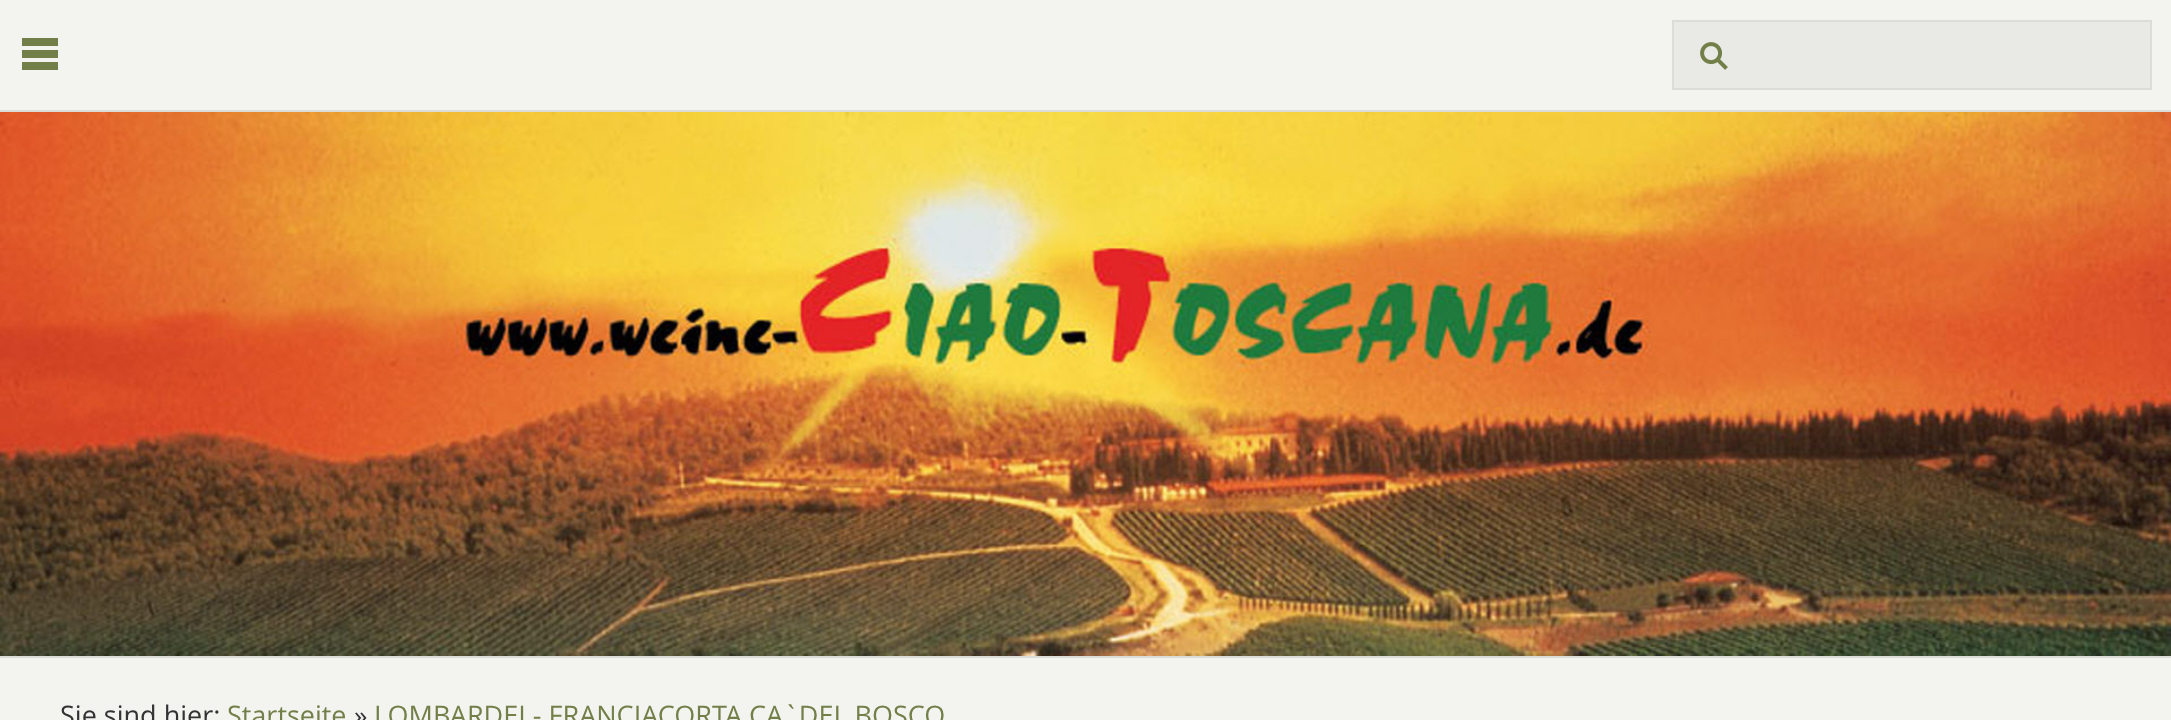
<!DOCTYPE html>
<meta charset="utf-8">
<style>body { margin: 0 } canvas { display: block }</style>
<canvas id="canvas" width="2171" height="720"></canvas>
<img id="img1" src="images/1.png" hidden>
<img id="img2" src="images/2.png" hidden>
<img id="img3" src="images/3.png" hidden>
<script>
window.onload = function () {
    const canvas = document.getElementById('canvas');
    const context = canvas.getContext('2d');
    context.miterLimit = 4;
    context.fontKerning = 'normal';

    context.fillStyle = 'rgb(243, 244, 239)';
    context.fillRect(0, 0, 2171, 720);
    context.drawImage(document.getElementById('img1'), 22, 38, 36, 32);
    context.fillStyle = 'rgb(233, 234, 229)';
    context.fillRect(1674, 22, 476, 66);
    context.drawImage(document.getElementById('img2'), 1700, 42, 28, 28);
    context.strokeStyle = 'rgb(220, 221, 217)';
    context.lineWidth = 2;
    context.strokeRect(1673, 21, 478, 68);
    context.fillStyle = 'rgb(220, 221, 217)';
    context.fillRect(0, 110, 2171, 2);
    context.fillRect(0, 656, 2171, 2);
    context.drawImage(document.getElementById('img3'), 0, 112, 2171, 544);
    context.font = '27px Open Sans';
    context.fillStyle = 'rgb(51, 51, 51)';
    context.fillText('Sie sind hier:', 60, 725);
    context.fillStyle = 'rgb(115, 127, 73)';
    context.fillText('Startseite', 227, 725);
    context.fillStyle = 'rgb(51, 51, 51)';
    context.fillText('»', 354, 725);
    context.fillStyle = 'rgb(115, 127, 73)';
    context.fillText('LOMBARDEI - FRANCIACORTA CA`DEL BOSCO', 374, 725);
};
</script>
